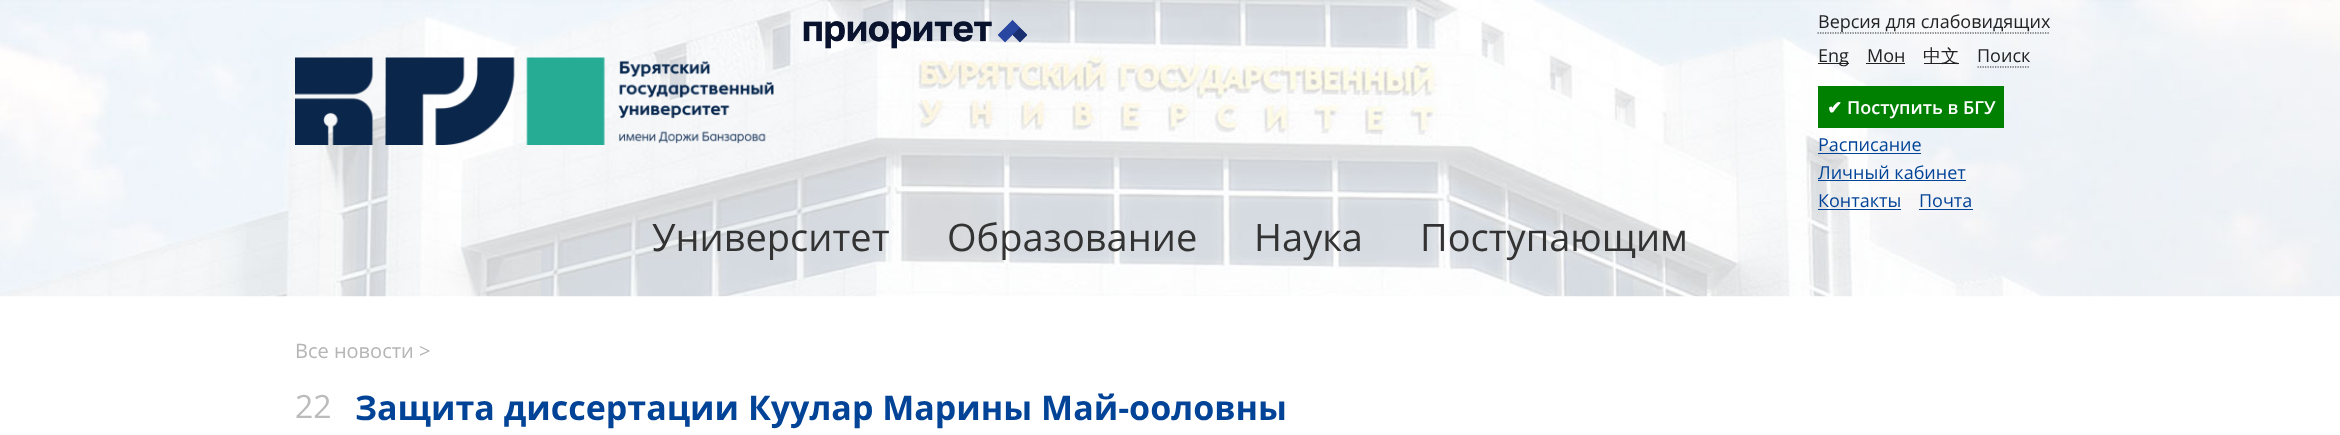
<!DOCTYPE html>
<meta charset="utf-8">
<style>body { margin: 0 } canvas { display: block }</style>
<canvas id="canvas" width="2340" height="435"></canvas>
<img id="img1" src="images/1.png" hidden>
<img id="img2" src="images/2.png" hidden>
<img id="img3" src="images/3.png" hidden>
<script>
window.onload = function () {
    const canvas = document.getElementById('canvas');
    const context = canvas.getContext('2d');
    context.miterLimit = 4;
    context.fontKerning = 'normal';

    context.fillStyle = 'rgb(255, 255, 255)';
    context.fillRect(0, 0, 2340, 435);
    context.drawImage(document.getElementById('img1'), 0, 0, 2340, 297);
    context.drawImage(document.getElementById('img2'), 803, 20, 225, 29);
    context.beginPath();
    context.moveTo(1817.5, 33);
    context.lineTo(2050, 33);
    context.strokeStyle = 'rgb(34, 34, 34)';
    context.lineWidth = 1.2;
    context.setLineDash([1.25, 1.25]);
    context.stroke();
    context.fillStyle = 'rgb(34, 34, 34)';
    context.fillRect(1818, 63, 31, 1);
    context.fillRect(1866, 63, 39, 1);
    context.fillRect(1924, 63, 35, 1);
    context.beginPath();
    context.moveTo(1977.5, 67);
    context.lineTo(2030, 67);
    context.stroke();
    context.fillStyle = 'rgb(0, 128, 0)';
    context.fillRect(1818, 86, 186, 42);
    context.fillStyle = 'rgb(1, 67, 151)';
    context.fillRect(1818, 153, 103, 1);
    context.fillRect(1818, 180, 148, 1);
    context.fillRect(1818, 209, 83, 1);
    context.fillRect(1919, 209, 54, 1);
    context.drawImage(document.getElementById('img3'), 295, 57, 479, 88);
    context.font = '18px Open Sans';
    context.fillStyle = 'rgb(34, 34, 34)';
    context.fillText('Версия для слабовидящих', 1818, 28);
    context.fillText('Eng', 1818, 62);
    context.fillText('Мон', 1867, 62);
    context.font = '500 18px WenQuanYi Zen Hei';
    context.fillText('中文', 1923, 62);
    context.font = '18px Open Sans';
    context.fillText('Поиск', 1977, 62);
    context.font = 'bold 18px DejaVu Sans';
    context.fillStyle = 'rgb(255, 255, 255)';
    context.fillText('✔', 1827, 114);
    context.font = '600 18px Open Sans';
    context.fillText('Поступить в БГУ', 1847, 114);
    context.font = '18px Open Sans';
    context.fillStyle = 'rgb(1, 67, 151)';
    context.fillText('Расписание', 1818, 151);
    context.fillText('Личный кабинет', 1818, 179);
    context.fillText('Контакты', 1818, 207);
    context.fillText('Почта', 1919, 207);
    context.font = '38px Open Sans';
    context.fillStyle = 'rgb(51, 51, 51)';
    context.fillText('Университет', 652, 251);
    context.fillText('Образование', 947, 251);
    context.fillText('Наука', 1254, 251);
    context.fillText('Поступающим', 1420, 251);
    context.font = '20px Open Sans';
    context.fillStyle = 'rgb(181, 181, 181)';
    context.fillText('Все новости >', 295, 358);
    context.font = '32px Open Sans';
    context.fillStyle = 'rgb(187, 187, 187)';
    context.fillText('22', 295, 418);
    context.font = 'bold 34px Open Sans';
    context.fillStyle = 'rgb(1, 67, 151)';
    context.fillText('Защита диссертации Куулар Марины Май-ооловны', 355, 420);
};
</script>
